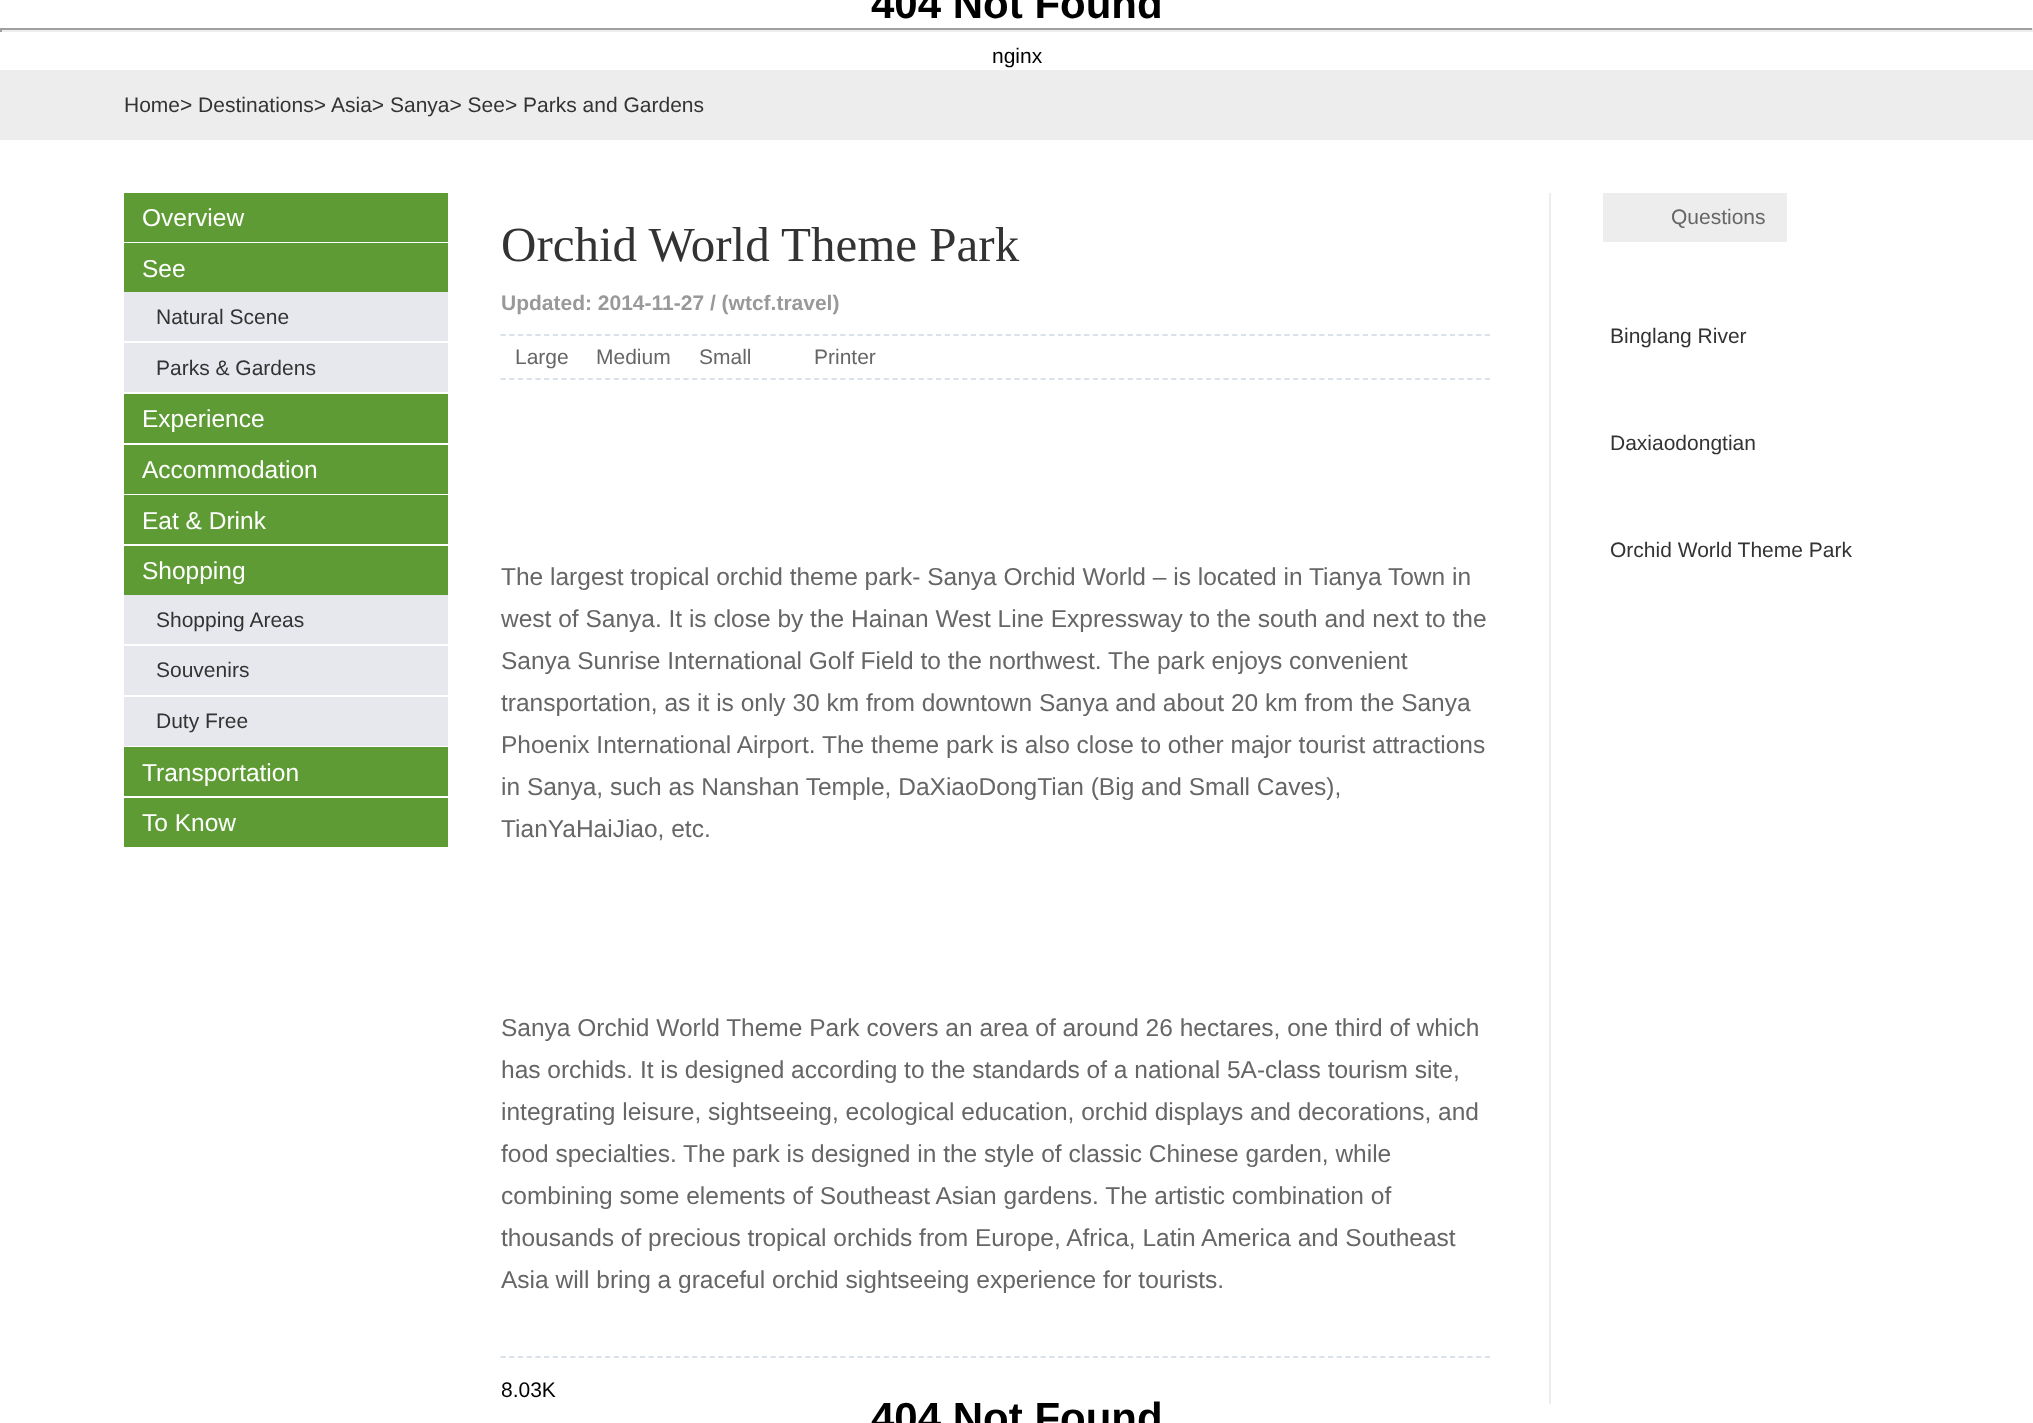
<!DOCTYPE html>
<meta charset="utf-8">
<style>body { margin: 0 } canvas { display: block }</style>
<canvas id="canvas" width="2033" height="1423"></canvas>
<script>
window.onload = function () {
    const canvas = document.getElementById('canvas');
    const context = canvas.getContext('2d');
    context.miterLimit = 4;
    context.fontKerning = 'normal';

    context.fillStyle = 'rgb(255, 255, 255)';
    context.fillRect(0, 0, 2033, 1423);
    context.fillStyle = 'rgb(159, 159, 159)';
    context.fillRect(0, 28, 2033, 2);
    context.fillStyle = 'rgb(238, 238, 238)';
    context.fillRect(2032, 28, 1, 4);
    context.fillRect(0, 30, 2033, 2);
    context.fillStyle = 'rgb(159, 159, 159)';
    context.fillRect(0, 28, 2, 4);
    context.fillStyle = 'rgb(237, 237, 237)';
    context.fillRect(0, 70, 2033, 70);
    context.fillStyle = 'rgb(94, 155, 52)';
    context.fillRect(124, 193, 324, 49);
    context.fillRect(124, 243, 324, 49);
    context.fillStyle = 'rgb(230, 232, 238)';
    context.fillRect(124, 292, 324, 49);
    context.fillRect(124, 343, 324, 49);
    context.fillStyle = 'rgb(94, 155, 52)';
    context.fillRect(124, 394, 324, 49);
    context.fillRect(124, 445, 324, 49);
    context.fillRect(124, 495, 324, 49);
    context.fillRect(124, 546, 324, 49);
    context.fillStyle = 'rgb(230, 232, 238)';
    context.fillRect(124, 595, 324, 49);
    context.fillRect(124, 646, 324, 49);
    context.fillRect(124, 697, 324, 49);
    context.fillStyle = 'rgb(94, 155, 52)';
    context.fillRect(124, 747, 324, 49);
    context.fillRect(124, 798, 324, 49);
    context.fillStyle = 'rgb(237, 237, 237)';
    context.fillRect(1549, 193, 2, 1211);
    context.beginPath();
    context.moveTo(500.5, 335);
    context.lineTo(1491, 335);
    context.strokeStyle = 'rgb(218, 225, 233)';
    context.lineWidth = 1.8;
    context.setLineDash([5.25, 3.46]);
    context.stroke();
    context.beginPath();
    context.moveTo(500.5, 379);
    context.lineTo(1491, 379);
    context.stroke();
    context.beginPath();
    context.moveTo(500.5, 1357);
    context.lineTo(1491, 1357);
    context.stroke();
    context.fillRect(1603, 193, 184, 49);
    context.font = 'bold 42px Liberation Sans';
    context.fillStyle = 'rgb(0, 0, 0)';
    context.fillText('404 Not Found', 871, 18);
    context.font = '21px Liberation Sans';
    context.fillText('nginx', 992, 63);
    context.fillStyle = 'rgb(51, 51, 51)';
    context.fillText('Home> Destinations>', 124, 112);
    context.fillText('Asia> Sanya> See> Parks and Gardens', 331, 112);
    context.font = '24.5px Liberation Sans';
    context.fillStyle = 'rgb(255, 255, 255)';
    context.fillText('Overview', 142, 226);
    context.fillText('See', 142, 277);
    context.font = '21px Liberation Sans';
    context.fillStyle = 'rgb(51, 51, 51)';
    context.fillText('Natural Scene', 156, 324);
    context.fillText('Parks & Gardens', 156, 375);
    context.font = '24.5px Liberation Sans';
    context.fillStyle = 'rgb(255, 255, 255)';
    context.fillText('Experience', 142, 427);
    context.fillText('Accommodation', 142, 478);
    context.fillText('Eat & Drink', 142, 529);
    context.fillText('Shopping', 142, 579);
    context.font = '21px Liberation Sans';
    context.fillStyle = 'rgb(51, 51, 51)';
    context.fillText('Shopping Areas', 156, 627);
    context.fillText('Souvenirs', 156, 677);
    context.fillText('Duty Free', 156, 728);
    context.font = '24.5px Liberation Sans';
    context.fillStyle = 'rgb(255, 255, 255)';
    context.fillText('Transportation', 142, 781);
    context.fillText('To Know', 142, 831);
    context.font = '49px Liberation Serif';
    context.fillStyle = 'rgb(51, 51, 51)';
    context.fillText('Orchid World Theme Park', 501, 261);
    context.font = 'bold 21px Liberation Sans';
    context.fillStyle = 'rgb(153, 153, 153)';
    context.fillText('Updated: 2014-11-27 / (wtcf.travel)', 501, 310);
    context.font = '21px Liberation Sans';
    context.fillStyle = 'rgb(102, 102, 102)';
    context.fillText('Large', 515, 364);
    context.fillText('Medium', 596, 364);
    context.fillText('Small', 699, 364);
    context.fillText('Printer', 814, 364);
    context.font = '24.5px Liberation Sans';
    context.fillText('The largest tropical orchid theme park- Sanya Orchid World – is located in Tianya Town in', 501, 585);
    context.fillText('west of Sanya. It is close by the Hainan West Line Expressway to the south and next to the', 501, 627);
    context.fillText('Sanya Sunrise International Golf Field to the northwest. The park enjoys convenient', 501, 669);
    context.fillText('transportation, as it is only 30 km from downtown Sanya and about 20 km from the Sanya', 501, 711);
    context.fillText('Phoenix International Airport. The theme park is also close to other major tourist attractions', 501, 753);
    context.fillText('in Sanya, such as Nanshan Temple, DaXiaoDongTian (Big and Small Caves),', 501, 795);
    context.fillText('TianYaHaiJiao, etc.', 501, 837);
    context.fillText('Sanya Orchid World Theme Park covers an area of around 26 hectares, one third of which', 501, 1036);
    context.fillText('has orchids. It is designed according to the standards of a national 5A-class tourism site,', 501, 1078);
    context.fillText('integrating leisure, sightseeing, ecological education, orchid displays and decorations, and', 501, 1120);
    context.fillText('food specialties. The park is designed in the style of classic Chinese garden, while', 501, 1162);
    context.fillText('combining some elements of Southeast Asian gardens. The artistic combination of', 501, 1204);
    context.fillText('thousands of precious tropical orchids from Europe, Africa, Latin America and Southeast', 501, 1246);
    context.fillText('Asia will bring a graceful orchid sightseeing experience for tourists.', 501, 1288);
    context.font = '21px Liberation Sans';
    context.fillStyle = 'rgb(0, 0, 0)';
    context.fillText('8.03K', 501, 1397);
    context.fillStyle = 'rgb(102, 102, 102)';
    context.fillText('Questions', 1671, 224);
    context.fillStyle = 'rgb(51, 51, 51)';
    context.fillText('Binglang River', 1610, 343);
    context.fillText('Daxiaodongtian', 1610, 450);
    context.fillText('Orchid World Theme Park', 1610, 557);
    context.font = 'bold 42px Liberation Sans';
    context.fillStyle = 'rgb(0, 0, 0)';
    context.fillText('404 Not Found', 871, 1432);
};
</script>
